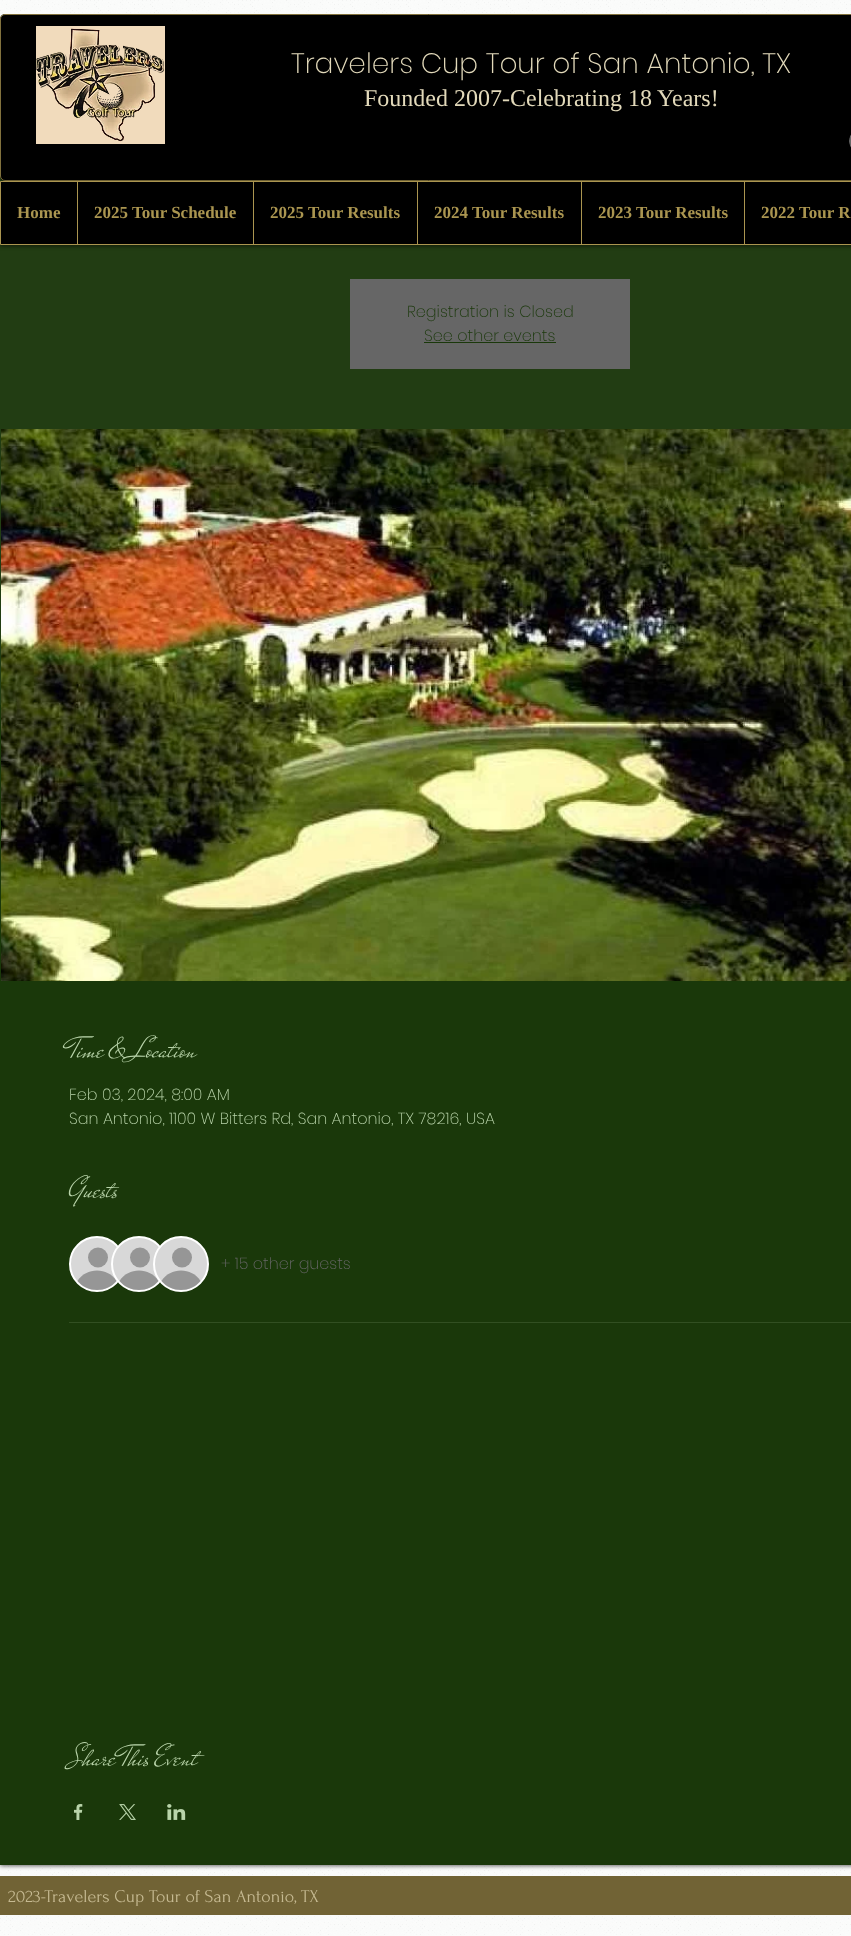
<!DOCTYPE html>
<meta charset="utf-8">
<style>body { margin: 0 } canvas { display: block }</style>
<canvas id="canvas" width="851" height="1936"></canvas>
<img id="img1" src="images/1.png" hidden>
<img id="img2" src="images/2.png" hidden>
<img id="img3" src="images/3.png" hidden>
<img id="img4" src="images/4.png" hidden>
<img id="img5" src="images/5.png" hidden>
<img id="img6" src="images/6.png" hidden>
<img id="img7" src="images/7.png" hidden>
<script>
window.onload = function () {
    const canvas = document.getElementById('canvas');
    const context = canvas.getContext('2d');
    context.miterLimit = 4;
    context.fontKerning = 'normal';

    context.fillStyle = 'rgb(251, 252, 251)';
    context.fillRect(0, 0, 851, 1936);
    context.drawImage(document.getElementById('img1'), 0, 0, 851, 1935);
    context.fillStyle = 'rgba(0, 0, 0, 0.6)';
    context.filter = 'blur(2px)';
    context.beginPath();
    context.rect(0, 100, 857, 1766);
    context.fill();
    context.filter = 'none';
    context.fillStyle = 'rgb(34, 61, 19)';
    context.fillRect(0, 176, 851, 529);
    context.fillStyle = 'rgb(0, 0, 0)';
    context.beginPath();
    context.roundRect(0, 14, 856, 167, 5);
    context.fill();
    context.beginPath();
    context.roundRect(0.5, 14.5, 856, 166, 4.5);
    context.strokeStyle = 'rgba(170, 149, 80, 0.76)';
    context.stroke();
    context.drawImage(document.getElementById('img2'), 36, 26, 129, 118);
    context.drawImage(document.getElementById('img3'), 849, 134, 2, 14);
    context.fillStyle = 'rgba(0, 0, 0, 0.6)';
    context.filter = 'blur(2px)';
    context.beginPath();
    context.rect(0, 182, 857, 64);
    context.fill();
    context.filter = 'none';
    context.fillStyle = 'rgb(0, 0, 0)';
    context.beginPath();
    context.rect(0.5, 181.5, 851, 63);
    context.fill();
    context.strokeStyle = 'rgb(170, 149, 80)';
    context.stroke();
    context.fillStyle = 'rgb(170, 149, 80)';
    context.fillRect(77, 182, 1, 62);
    context.fillRect(253, 182, 1, 62);
    context.fillRect(417, 182, 1, 62);
    context.fillRect(581, 182, 1, 62);
    context.fillRect(744, 182, 1, 62);
    context.fillStyle = 'rgb(102, 102, 102)';
    context.fillRect(350, 279, 280, 90);
    context.fillStyle = 'rgb(26, 56, 10)';
    context.fillRect(424, 342, 132, 1);
    context.fillRect(0, 705, 851, 1160);
    context.drawImage(document.getElementById('img4'), 1, 429, 850, 552);
    context.fillStyle = 'rgb(216, 216, 216)';
    context.beginPath();
    context.arc(97, 1264, 27, 0, 2 * Math.PI);
    context.fill();
    context.strokeStyle = 'rgb(255, 255, 255)';
    context.lineWidth = 2;
    context.stroke();
    context.fillStyle = 'rgb(150, 150, 150)';
    context.beginPath();
    context.arc(98, 1257.5, 10, 0, 2 * Math.PI);
    context.fill();
    context.beginPath();
    context.moveTo(116.5, 1281);
    context.bezierCurveTo(106.5, 1293, 87.5, 1293, 77.5, 1281);
    context.bezierCurveTo(86, 1267, 108, 1267, 116.5, 1281);
    context.closePath();
    context.fill();
    context.fillStyle = 'rgb(216, 216, 216)';
    context.beginPath();
    context.arc(139, 1264, 27, 0, 2 * Math.PI);
    context.fill();
    context.stroke();
    context.fillStyle = 'rgb(150, 150, 150)';
    context.beginPath();
    context.arc(140, 1257.5, 10, 0, 2 * Math.PI);
    context.fill();
    context.beginPath();
    context.moveTo(158.5, 1281);
    context.bezierCurveTo(148.5, 1293, 129.5, 1293, 119.5, 1281);
    context.bezierCurveTo(128, 1267, 150, 1267, 158.5, 1281);
    context.closePath();
    context.fill();
    context.fillStyle = 'rgb(216, 216, 216)';
    context.beginPath();
    context.arc(181, 1264, 27, 0, 2 * Math.PI);
    context.fill();
    context.stroke();
    context.fillStyle = 'rgb(150, 150, 150)';
    context.beginPath();
    context.arc(182, 1257.5, 10, 0, 2 * Math.PI);
    context.fill();
    context.beginPath();
    context.moveTo(200.5, 1281);
    context.bezierCurveTo(190.5, 1293, 171.5, 1293, 161.5, 1281);
    context.bezierCurveTo(170, 1267, 192, 1267, 200.5, 1281);
    context.closePath();
    context.fill();
    context.fillStyle = 'rgb(50, 79, 34)';
    context.fillRect(69, 1322, 782, 1);
    context.drawImage(document.getElementById('img5'), 74, 1804, 9, 16);
    context.drawImage(document.getElementById('img6'), 119, 1804, 17, 16);
    context.drawImage(document.getElementById('img7'), 167, 1804, 19, 16);
    context.fillStyle = 'rgb(113, 99, 53)';
    context.fillRect(0, 1876, 851, 39);
    context.font = '200 28px Poppins';
    context.fillStyle = 'rgb(226, 217, 186)';
    context.fillText('Travelers Cup Tour of San Antonio, TX', 291, 73);
    context.font = '24px Liberation Serif';
    context.fillText('Founded 2007-Celebrating 18 Years!', 364, 106);
    context.font = 'bold 17px Liberation Serif';
    context.fillStyle = 'rgb(170, 149, 80)';
    context.fillText('Home', 17, 218);
    context.fillText('2025 Tour Schedule', 94, 218);
    context.fillText('2025 Tour Results', 270, 218);
    context.fillText('2024 Tour Results', 434, 218);
    context.fillText('2023 Tour Results', 598, 218);
    context.fillText('2022 Tour R', 761, 218);
    context.font = '200 16px Poppins';
    context.fillStyle = 'rgb(26, 56, 10)';
    context.fillText('Registration is Closed', 407, 317);
    context.fillText('See other events', 424, 341);
    context.font = '30px Mr De Haviland';
    context.fillStyle = 'rgb(185, 212, 170)';
    context.fillText('Time & Location', 69, 1057);
    context.font = '200 16px Poppins';
    context.fillText('Feb 03, 2024, 8:00 AM', 69, 1100);
    context.fillText('San Antonio, 1100 W Bitters Rd, San Antonio, TX 78216, USA', 69, 1124);
    context.font = '30px Mr De Haviland';
    context.fillText('Guests', 69, 1197);
    context.font = '200 16px Poppins';
    context.fillStyle = 'rgb(102, 102, 102)';
    context.fillText('+ 15 other guests', 221, 1269);
    context.font = '30px Mr De Haviland';
    context.fillStyle = 'rgb(185, 212, 170)';
    context.fillText('Share This Event', 69, 1765);
    context.font = '18px Forum';
    context.fillStyle = 'rgb(198, 186, 146)';
    context.fillText('2023-Travelers Cup Tour of San Antonio, TX', 8, 1902);
};
</script>
